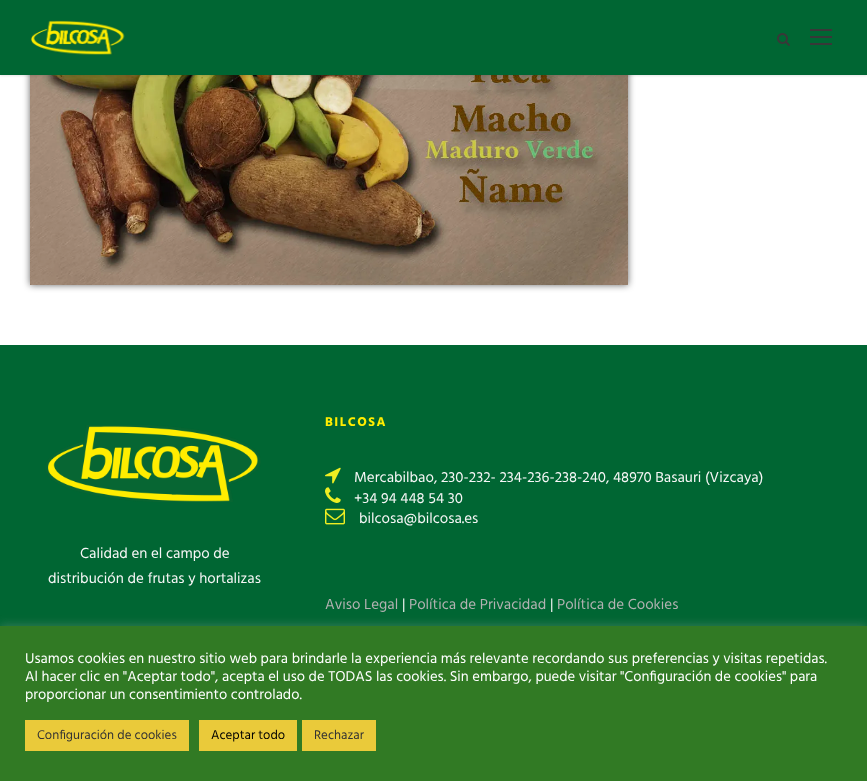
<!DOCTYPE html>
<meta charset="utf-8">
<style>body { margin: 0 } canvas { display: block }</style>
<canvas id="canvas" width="867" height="781"></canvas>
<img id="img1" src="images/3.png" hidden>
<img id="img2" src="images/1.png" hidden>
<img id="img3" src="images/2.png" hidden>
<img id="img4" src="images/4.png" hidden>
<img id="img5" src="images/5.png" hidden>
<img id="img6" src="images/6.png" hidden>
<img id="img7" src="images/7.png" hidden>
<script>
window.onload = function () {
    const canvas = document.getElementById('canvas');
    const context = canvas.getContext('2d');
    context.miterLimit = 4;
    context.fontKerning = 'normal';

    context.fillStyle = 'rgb(255, 255, 255)';
    context.fillRect(0, 0, 867, 781);
    context.fillStyle = 'rgba(0, 0, 0, 0.6)';
    context.filter = 'blur(3.5px)';
    context.beginPath();
    context.rect(30, -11, 598, 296);
    context.fill();
    context.filter = 'none';
    context.drawImage(document.getElementById('img1'), 30, 75, 598, 210);
    context.fillStyle = 'rgba(0, 0, 0, 0.1)';
    context.filter = 'blur(1px)';
    context.beginPath();
    context.rect(0, 1, 867, 75);
    context.fill();
    context.filter = 'none';
    context.fillStyle = 'rgb(0, 102, 51)';
    context.fillRect(0, 0, 867, 75);
    context.drawImage(document.getElementById('img2'), 30, 20, 95, 35);
    context.drawImage(document.getElementById('img3'), 777, 33, 13, 13);
    context.fillStyle = 'rgb(56, 56, 56)';
    context.fillRect(810, 29, 22, 2);
    context.fillRect(810, 36, 22, 2);
    context.fillRect(810, 43, 22, 2);
    context.fillStyle = 'rgb(0, 102, 51)';
    context.fillRect(0, 345, 867, 281);
    context.drawImage(document.getElementById('img4'), 45, 425, 216, 77);
    context.drawImage(document.getElementById('img5'), 325, 467, 16, 17);
    context.drawImage(document.getElementById('img6'), 325, 487, 16, 16);
    context.drawImage(document.getElementById('img7'), 325, 508, 20, 17);
    context.fillStyle = 'rgba(172, 171, 171, 0.3)';
    context.filter = 'blur(5px)';
    context.beginPath();
    context.rect(0, 625, 867, 155);
    context.fill();
    context.filter = 'none';
    context.fillStyle = 'rgb(49, 122, 36)';
    context.fillRect(0, 626, 867, 155);
    context.fillStyle = 'rgb(234, 202, 58)';
    context.fillRect(25, 720, 164, 31);
    context.fillRect(199, 720, 98, 31);
    context.fillRect(302, 720, 74, 31);
    context.font = '15px Hind';
    context.fillStyle = 'rgb(247, 247, 247)';
    context.fillText('Calidad en el campo de', 80, 558);
    context.fillText('distribución de frutas y hortalizas', 48, 583);
    context.letterSpacing = '1.5px';
    context.font = 'bold 13px Hind';
    context.fillStyle = 'rgb(255, 237, 0)';
    context.fillText('BILCOSA', 325, 426);
    context.letterSpacing = '0px';
    context.font = '15px Hind';
    context.fillStyle = 'rgb(247, 247, 247)';
    context.fillText('Mercabilbao, 230-232- 234-236-238-240, 48970 Basauri (Vizcaya)', 354, 482);
    context.fillText('+34 94 448 54 30', 354, 503);
    context.fillText('bilcosa@bilcosa.es', 359, 523);
    context.fillStyle = 'rgb(178, 178, 178)';
    context.fillText('Aviso Legal', 325, 609);
    context.fillStyle = 'rgb(247, 247, 247)';
    context.fillText('|', 402, 609);
    context.fillStyle = 'rgb(178, 178, 178)';
    context.fillText('Política de Privacidad', 409, 609);
    context.fillStyle = 'rgb(247, 247, 247)';
    context.fillText('|', 550, 609);
    context.fillStyle = 'rgb(178, 178, 178)';
    context.fillText('Política de Cookies', 557, 609);
    context.font = '14.67px Hind';
    context.fillStyle = 'rgb(255, 255, 255)';
    context.fillText('Usamos cookies en nuestro sitio web para brindarle la experiencia más relevante recordando sus preferencias y visitas repetidas.', 25, 663);
    context.fillText('Al hacer clic en "Aceptar todo", acepta el uso de TODAS las cookies. Sin embargo, puede visitar "Configuración de cookies" para', 25, 681);
    context.fillText('proporcionar un consentimiento controlado.', 25, 699);
    context.font = '13px Hind';
    context.fillStyle = 'rgb(51, 51, 51)';
    context.fillText('Configuración de cookies', 37, 739);
    context.fillStyle = 'rgb(0, 0, 0)';
    context.fillText('Aceptar todo', 211, 739);
    context.fillStyle = 'rgb(51, 51, 51)';
    context.fillText('Rechazar', 314, 739);
};
</script>
